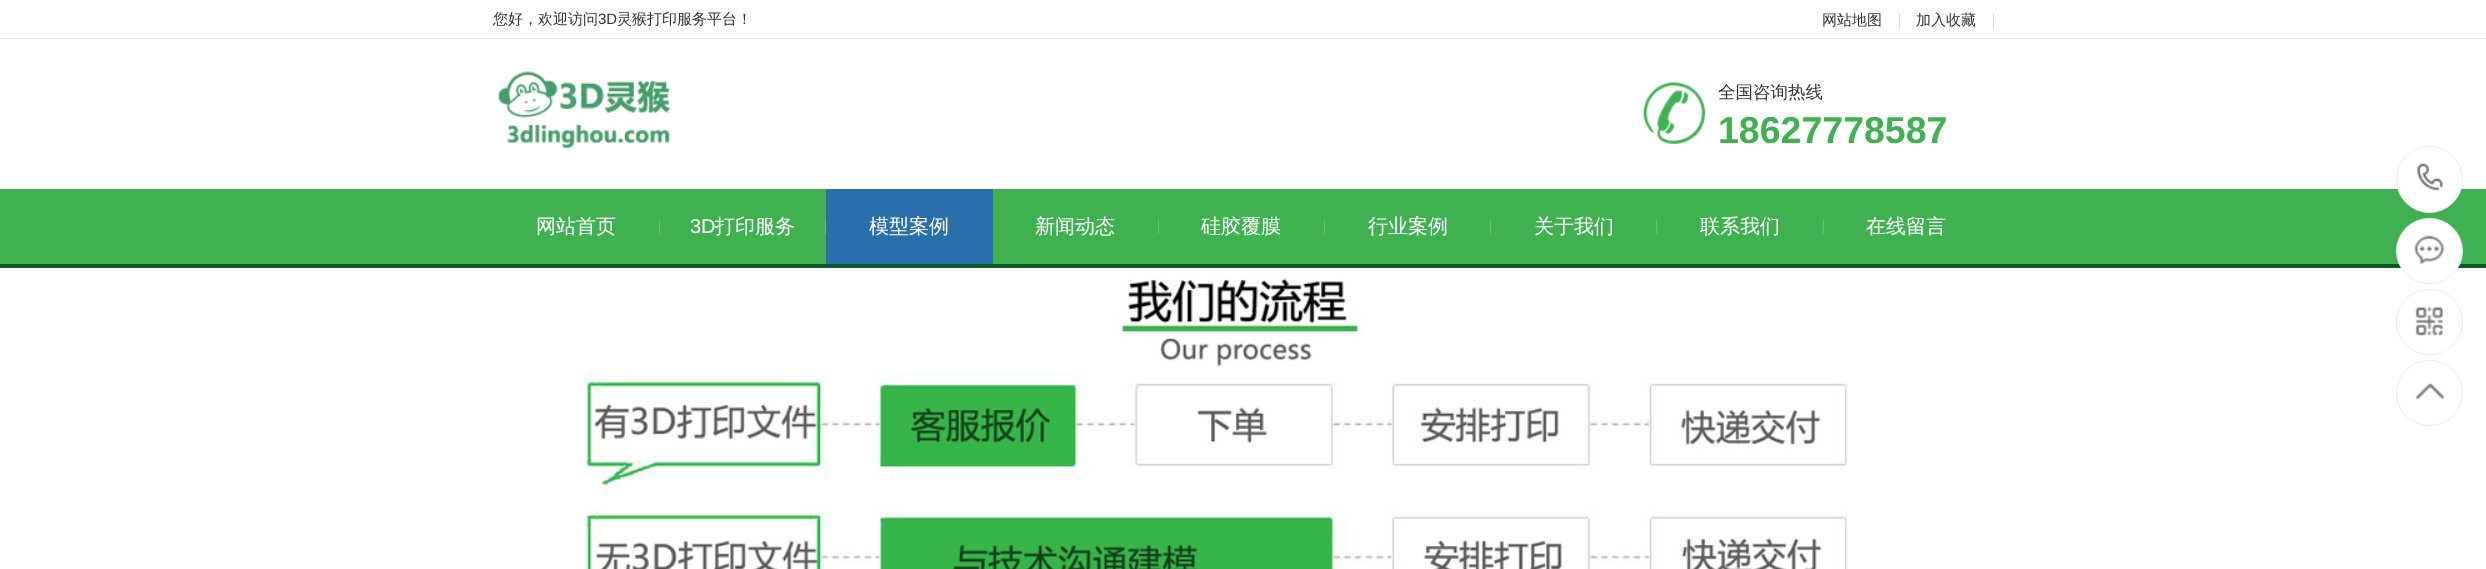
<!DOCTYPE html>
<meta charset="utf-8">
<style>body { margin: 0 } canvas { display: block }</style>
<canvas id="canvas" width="2486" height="569"></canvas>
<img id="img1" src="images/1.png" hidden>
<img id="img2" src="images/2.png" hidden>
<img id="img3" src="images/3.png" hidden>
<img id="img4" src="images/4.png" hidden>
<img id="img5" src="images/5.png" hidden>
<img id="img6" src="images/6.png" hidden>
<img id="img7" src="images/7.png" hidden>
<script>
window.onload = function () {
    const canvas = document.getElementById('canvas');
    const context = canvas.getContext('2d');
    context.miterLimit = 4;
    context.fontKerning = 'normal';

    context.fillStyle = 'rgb(255, 255, 255)';
    context.fillRect(0, 0, 2486, 569);
    context.fillStyle = 'rgb(229, 229, 229)';
    context.fillRect(0, 38, 2486, 1);
    context.fillStyle = 'rgb(216, 216, 216)';
    context.fillRect(1899, 13, 1, 15);
    context.fillRect(1993, 13, 1, 15);
    context.drawImage(document.getElementById('img1'), 498, 71, 173, 78);
    context.drawImage(document.getElementById('img2'), 1643, 82, 63, 62);
    context.fillStyle = 'rgb(63, 177, 80)';
    context.fillRect(0, 189, 2486, 75);
    context.fillStyle = 'rgb(16, 85, 41)';
    context.fillRect(0, 264, 2486, 4);
    context.fillStyle = 'rgb(99, 190, 112)';
    context.fillRect(659, 219, 1, 15);
    context.fillRect(825, 219, 1, 15);
    context.fillStyle = 'rgb(42, 111, 171)';
    context.fillRect(826, 189, 167, 75);
    context.fillStyle = 'rgb(99, 190, 112)';
    context.fillRect(1158, 219, 1, 15);
    context.fillRect(1324, 219, 1, 15);
    context.fillRect(1490, 219, 1, 15);
    context.fillRect(1656, 219, 1, 15);
    context.fillRect(1823, 219, 1, 15);
    context.fillStyle = 'rgb(255, 255, 255)';
    context.beginPath();
    context.arc(2429.5, 179.5, 33, 0, 2 * Math.PI);
    context.fill();
    context.strokeStyle = 'rgb(235, 235, 235)';
    context.stroke();
    context.drawImage(document.getElementById('img3'), 2417, 163, 26, 28);
    context.beginPath();
    context.roundRect(2396.5, 218.5, 66, 65, 32.5);
    context.fill();
    context.stroke();
    context.drawImage(document.getElementById('img4'), 2414, 235, 31, 30);
    context.beginPath();
    context.roundRect(2396.5, 289.5, 66, 65, 32.5);
    context.stroke();
    context.drawImage(document.getElementById('img5'), 2415, 306, 29, 30);
    context.beginPath();
    context.roundRect(2396.5, 360.5, 66, 65, 32.5);
    context.stroke();
    context.drawImage(document.getElementById('img6'), 2415, 383, 30, 17);
    context.drawImage(document.getElementById('img7'), 585, 278, 1263, 291);
    context.font = '500 15px WenQuanYi Zen Hei';
    context.fillStyle = 'rgb(51, 51, 51)';
    context.fillText('您好，欢迎访问', 493, 24);
    context.font = '15px Liberation Sans';
    context.fillText('3D', 598, 24);
    context.font = '500 15px WenQuanYi Zen Hei';
    context.fillText('灵猴打印服务平台！', 617, 24);
    context.fillText('网站地图', 1822, 25);
    context.fillText('加入收藏', 1916, 25);
    context.font = '500 17.5px WenQuanYi Zen Hei';
    context.fillText('全国咨询热线', 1718, 98);
    context.font = 'bold 37.5px Liberation Sans';
    context.fillStyle = 'rgb(63, 177, 80)';
    context.fillText('18627778587', 1718, 143);
    context.font = '500 20px WenQuanYi Zen Hei';
    context.fillStyle = 'rgb(255, 255, 255)';
    context.fillText('网站首页', 536, 233);
    context.font = '20px Liberation Sans';
    context.fillText('3D', 690, 233);
    context.font = '500 20px WenQuanYi Zen Hei';
    context.fillText('打印服务', 715, 233);
    context.fillText('模型案例', 869, 233);
    context.fillText('新闻动态', 1035, 233);
    context.fillText('硅胶覆膜', 1201, 233);
    context.fillText('行业案例', 1368, 233);
    context.fillText('关于我们', 1534, 233);
    context.fillText('联系我们', 1700, 233);
    context.fillText('在线留言', 1866, 233);
};
</script>
